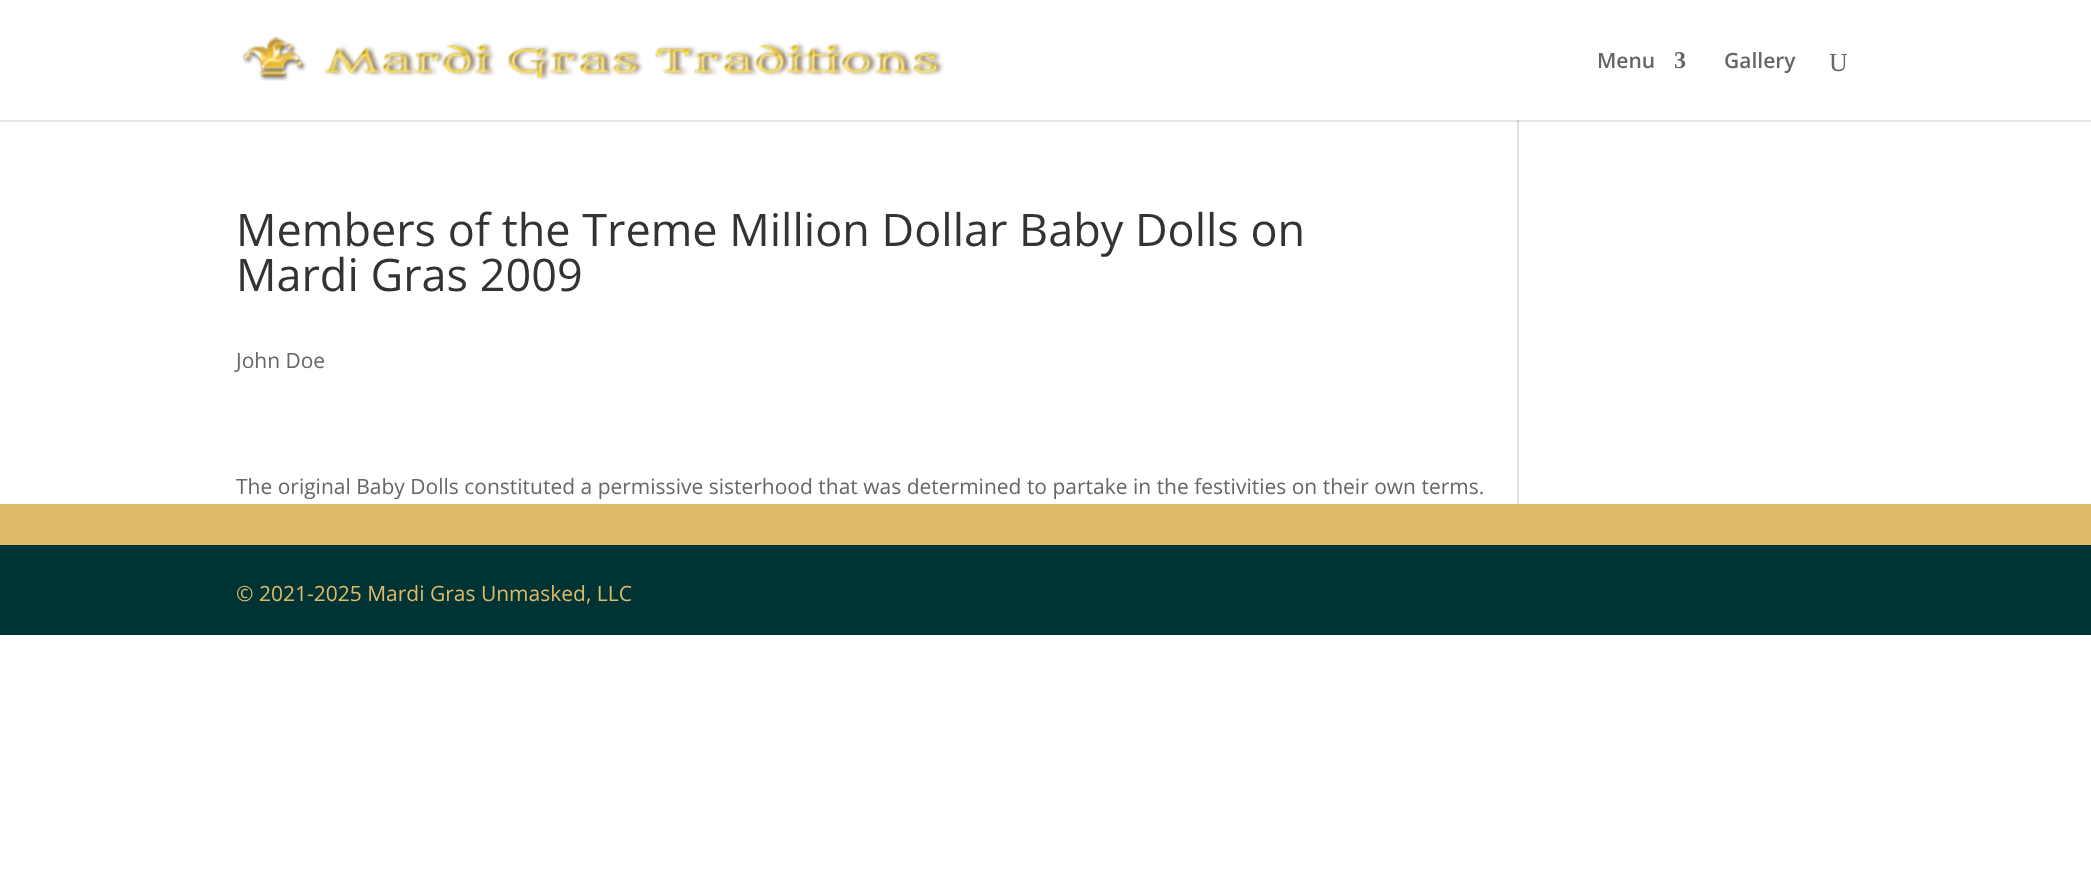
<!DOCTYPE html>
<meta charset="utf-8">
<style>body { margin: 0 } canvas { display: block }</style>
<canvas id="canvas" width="2091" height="871"></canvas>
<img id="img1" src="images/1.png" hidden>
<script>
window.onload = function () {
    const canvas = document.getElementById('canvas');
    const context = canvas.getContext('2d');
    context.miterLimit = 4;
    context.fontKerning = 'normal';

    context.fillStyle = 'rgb(255, 255, 255)';
    context.fillRect(0, 0, 2091, 871);
    context.fillStyle = 'rgb(230, 230, 230)';
    context.fillRect(0, 120, 2091, 2);
    context.drawImage(document.getElementById('img1'), 242, 37, 702, 44);
    context.fillStyle = 'rgb(226, 226, 226)';
    context.fillRect(1517, 120, 2, 384);
    context.fillStyle = 'rgb(203, 203, 203)';
    context.fillRect(1517, 120, 2, 2);
    context.fillStyle = 'rgb(0, 51, 51)';
    context.fillRect(0, 545, 2091, 90);
    context.fillStyle = 'rgb(223, 186, 105)';
    context.fillRect(0, 504, 2091, 41);
    context.font = '600 21px Open Sans';
    context.fillStyle = 'rgb(102, 102, 102)';
    context.fillText('Menu', 1597, 68);
    context.font = 'bold 24px Liberation Serif';
    context.fillText('3', 1674, 68);
    context.font = '600 21px Open Sans';
    context.fillText('Gallery', 1724, 68);
    context.font = '26px Liberation Serif';
    context.fillText('U', 1829, 71);
    context.font = '45px Open Sans';
    context.fillStyle = 'rgb(51, 51, 51)';
    context.fillText('Members of the Treme Million Dollar Baby Dolls on', 236, 246);
    context.fillText('Mardi Gras 2009', 236, 291);
    context.font = '21px Open Sans';
    context.fillStyle = 'rgb(102, 102, 102)';
    context.fillText('John Doe', 236, 368);
    context.fillText('The original Baby Dolls constituted a permissive sisterhood that was determined to partake in the festivities on their own terms.', 236, 494);
    context.fillStyle = 'rgb(223, 186, 105)';
    context.fillText('© 2021-2025 Mardi Gras Unmasked, LLC', 236, 601);
};
</script>
